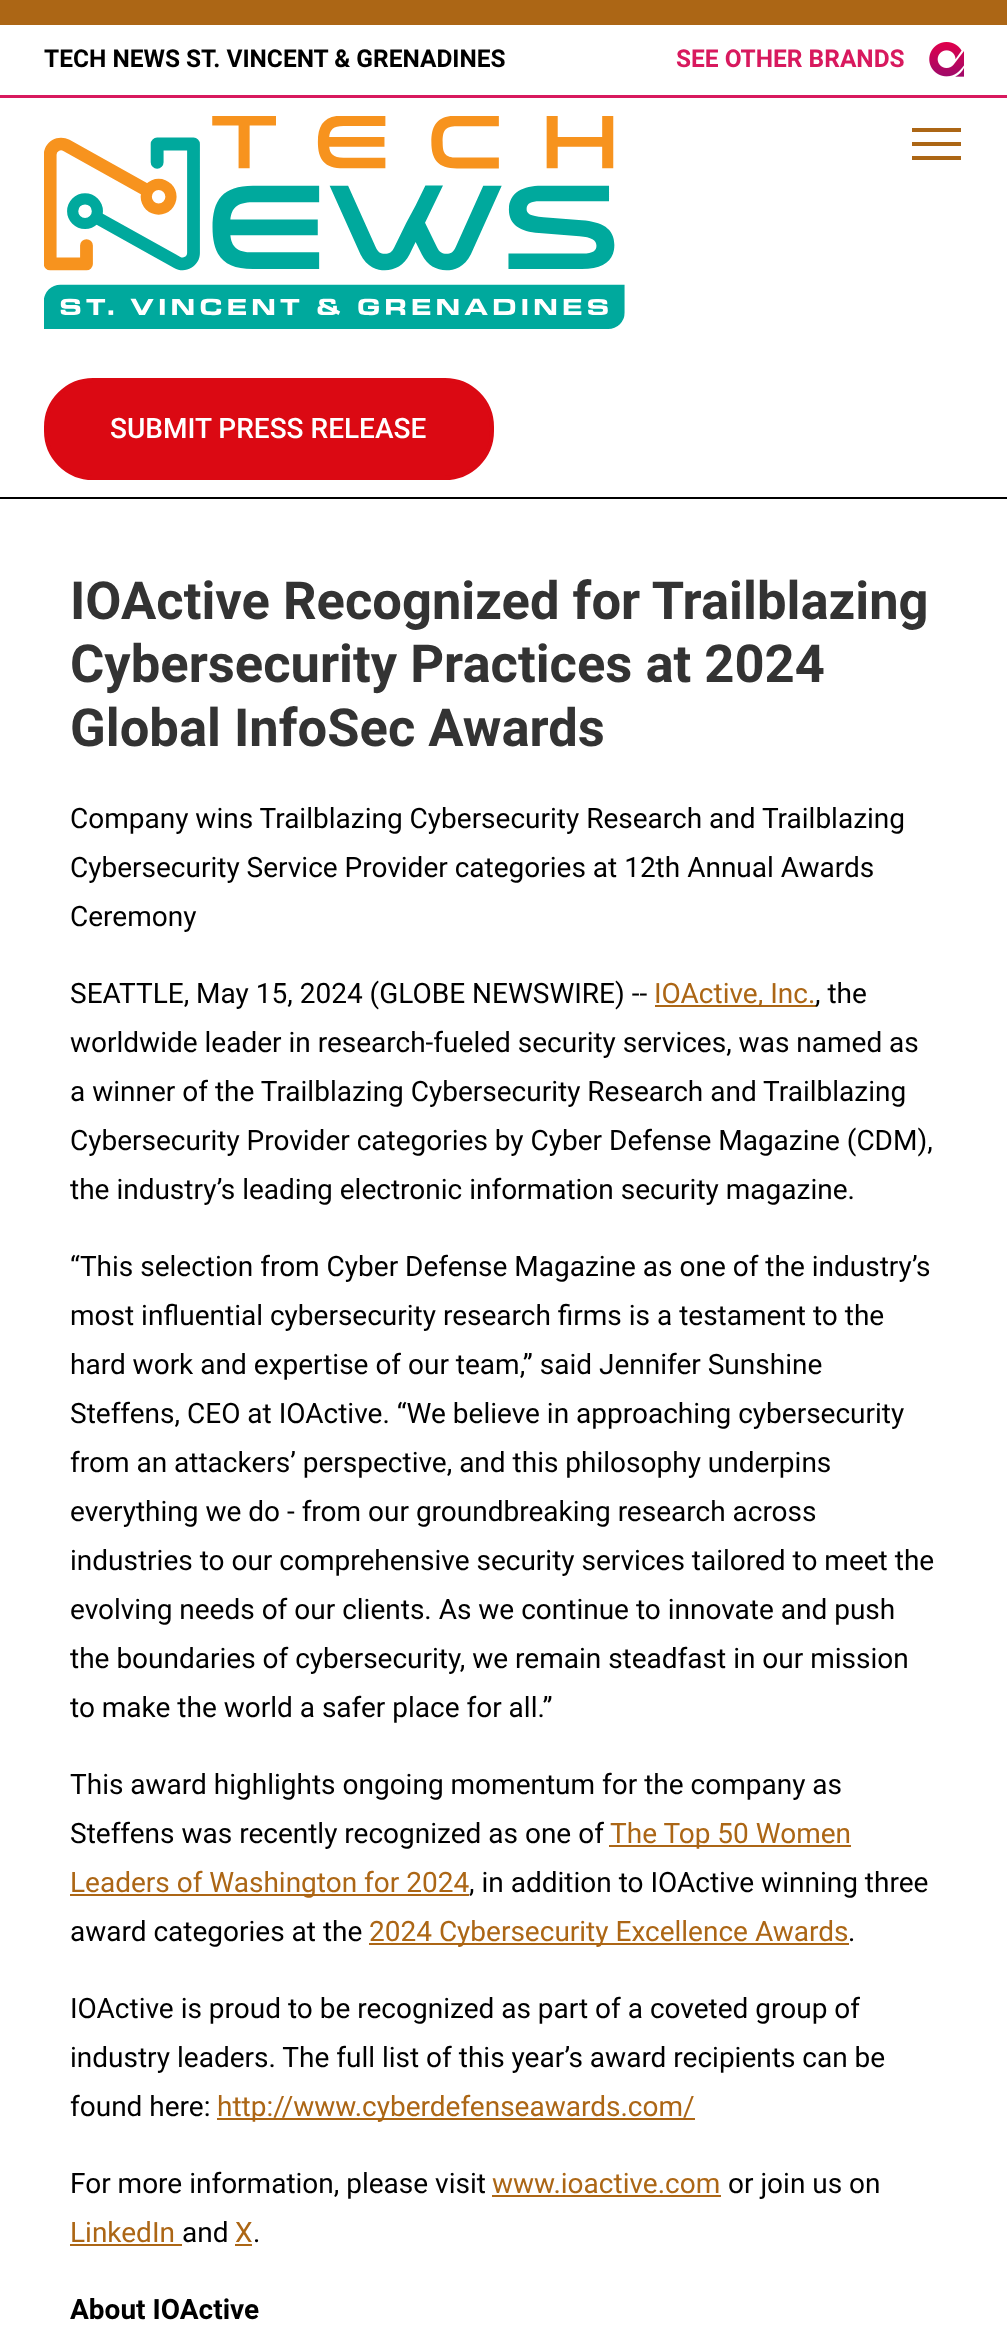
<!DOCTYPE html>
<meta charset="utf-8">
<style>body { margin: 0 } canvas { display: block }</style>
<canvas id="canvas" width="1007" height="2343"></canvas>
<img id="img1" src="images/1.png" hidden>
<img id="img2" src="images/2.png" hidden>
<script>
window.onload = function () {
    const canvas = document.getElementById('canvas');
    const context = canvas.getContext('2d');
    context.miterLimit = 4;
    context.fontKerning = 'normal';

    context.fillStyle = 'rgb(172, 102, 21)';
    context.fillRect(0, 0, 1007, 2343);
    context.fillStyle = 'rgb(255, 255, 255)';
    context.fillRect(0, 25, 1007, 70);
    context.fillStyle = 'rgb(216, 25, 94)';
    context.fillRect(0, 95, 1007, 3);
    context.drawImage(document.getElementById('img1'), 929, 42, 35, 35);
    context.fillStyle = 'rgb(255, 255, 255)';
    context.fillRect(0, 98, 1007, 399);
    context.fillStyle = 'rgb(0, 0, 0)';
    context.fillRect(0, 497, 1007, 2);
    context.drawImage(document.getElementById('img2'), 44, 116, 581, 213);
    context.fillStyle = 'rgb(172, 102, 21)';
    context.fillRect(912, 128, 49, 4);
    context.fillRect(912, 142, 49, 4);
    context.fillRect(912, 156, 49, 4);
    context.fillStyle = 'rgb(219, 9, 19)';
    context.beginPath();
    context.roundRect(46, 380, 446, 98, 47);
    context.fill();
    context.strokeStyle = 'rgb(219, 9, 19)';
    context.lineWidth = 4;
    context.stroke();
    context.fillStyle = 'rgb(255, 255, 255)';
    context.fillRect(0, 499, 1007, 1844);
    context.fillStyle = 'rgb(172, 102, 21)';
    context.fillRect(655, 1005, 161, 2);
    context.fillRect(609, 1845, 242, 2);
    context.fillRect(70, 1894, 399, 2);
    context.fillRect(369, 1943, 480, 2);
    context.fillRect(217, 2118, 478, 2);
    context.fillRect(492, 2195, 229, 2);
    context.fillRect(70, 2244, 112, 2);
    context.fillRect(235, 2244, 17, 2);
    context.font = 'bold 24.5px Roboto';
    context.fillStyle = 'rgb(0, 0, 0)';
    context.fillText('TECH NEWS ST. VINCENT & GRENADINES', 44, 67);
    context.fillStyle = 'rgb(216, 25, 94)';
    context.fillText('SEE OTHER BRANDS', 676, 67);
    context.font = '500 28px Roboto';
    context.fillStyle = 'rgb(255, 255, 255)';
    context.fillText('SUBMIT PRESS RELEASE', 110, 438);
    context.font = 'bold 52.5px Roboto';
    context.fillStyle = 'rgb(51, 51, 51)';
    context.fillText('IOActive Recognized for Trailblazing', 70, 619);
    context.fillText('Cybersecurity Practices at 2024', 70, 682);
    context.fillText('Global InfoSec Awards', 70, 746);
    context.font = '28px Roboto';
    context.fillStyle = 'rgb(0, 0, 0)';
    context.fillText('Company wins Trailblazing Cybersecurity Research and Trailblazing', 70, 828);
    context.fillText('Cybersecurity Service Provider categories at 12th Annual Awards', 70, 877);
    context.fillText('Ceremony', 70, 926);
    context.fillText('SEATTLE, May 15, 2024 (GLOBE NEWSWIRE) --', 70, 1003);
    context.fillStyle = 'rgb(172, 102, 21)';
    context.fillText('IOActive, Inc.', 654, 1003);
    context.fillStyle = 'rgb(0, 0, 0)';
    context.fillText(', the', 815, 1003);
    context.fillText('worldwide leader in research-fueled security services, was named as', 70, 1052);
    context.fillText('a winner of the Trailblazing Cybersecurity Research and Trailblazing', 70, 1101);
    context.fillText('Cybersecurity Provider categories by Cyber Defense Magazine (CDM),', 70, 1150);
    context.fillText('the industry’s leading electronic information security magazine.', 70, 1199);
    context.fillText('“This selection from Cyber Defense Magazine as one of the industry’s', 70, 1276);
    context.fillText('most influential cybersecurity research firms is a testament to the', 70, 1325);
    context.fillText('hard work and expertise of our team,” said Jennifer Sunshine', 70, 1374);
    context.fillText('Steffens, CEO at IOActive. “We believe in approaching cybersecurity', 70, 1423);
    context.fillText('from an attackers’ perspective, and this philosophy underpins', 70, 1472);
    context.fillText('everything we do - from our groundbreaking research across', 70, 1521);
    context.fillText('industries to our comprehensive security services tailored to meet the', 70, 1570);
    context.fillText('evolving needs of our clients. As we continue to innovate and push', 70, 1619);
    context.fillText('the boundaries of cybersecurity, we remain steadfast in our mission', 70, 1668);
    context.fillText('to make the world a safer place for all.”', 70, 1717);
    context.fillText('This award highlights ongoing momentum for the company as', 70, 1794);
    context.fillText('Steffens was recently recognized as one of', 70, 1843);
    context.fillStyle = 'rgb(172, 102, 21)';
    context.fillText('The Top 50 Women', 610, 1843);
    context.fillText('Leaders of Washington for 2024', 70, 1892);
    context.fillStyle = 'rgb(0, 0, 0)';
    context.fillText(', in addition to IOActive winning three', 469, 1892);
    context.fillText('award categories at the', 70, 1941);
    context.fillStyle = 'rgb(172, 102, 21)';
    context.fillText('2024 Cybersecurity Excellence Awards', 369, 1941);
    context.fillStyle = 'rgb(0, 0, 0)';
    context.fillText('.', 848, 1941);
    context.fillText('IOActive is proud to be recognized as part of a coveted group of', 70, 2018);
    context.fillText('industry leaders. The full list of this year’s award recipients can be', 70, 2067);
    context.fillText('found here:', 70, 2116);
    context.fillStyle = 'rgb(172, 102, 21)';
    context.fillText('http://www.cyberdefenseawards.com/', 217, 2116);
    context.fillStyle = 'rgb(0, 0, 0)';
    context.fillText('For more information, please visit', 70, 2193);
    context.fillStyle = 'rgb(172, 102, 21)';
    context.fillText('www.ioactive.com', 492, 2193);
    context.fillStyle = 'rgb(0, 0, 0)';
    context.fillText('or join us on', 728, 2193);
    context.fillStyle = 'rgb(172, 102, 21)';
    context.fillText('LinkedIn', 70, 2242);
    context.fillStyle = 'rgb(0, 0, 0)';
    context.fillText('and', 182, 2242);
    context.fillStyle = 'rgb(172, 102, 21)';
    context.fillText('X', 235, 2242);
    context.fillStyle = 'rgb(0, 0, 0)';
    context.fillText('.', 253, 2242);
    context.font = 'bold 28px Roboto';
    context.fillText('About IOActive', 70, 2319);
};
</script>
